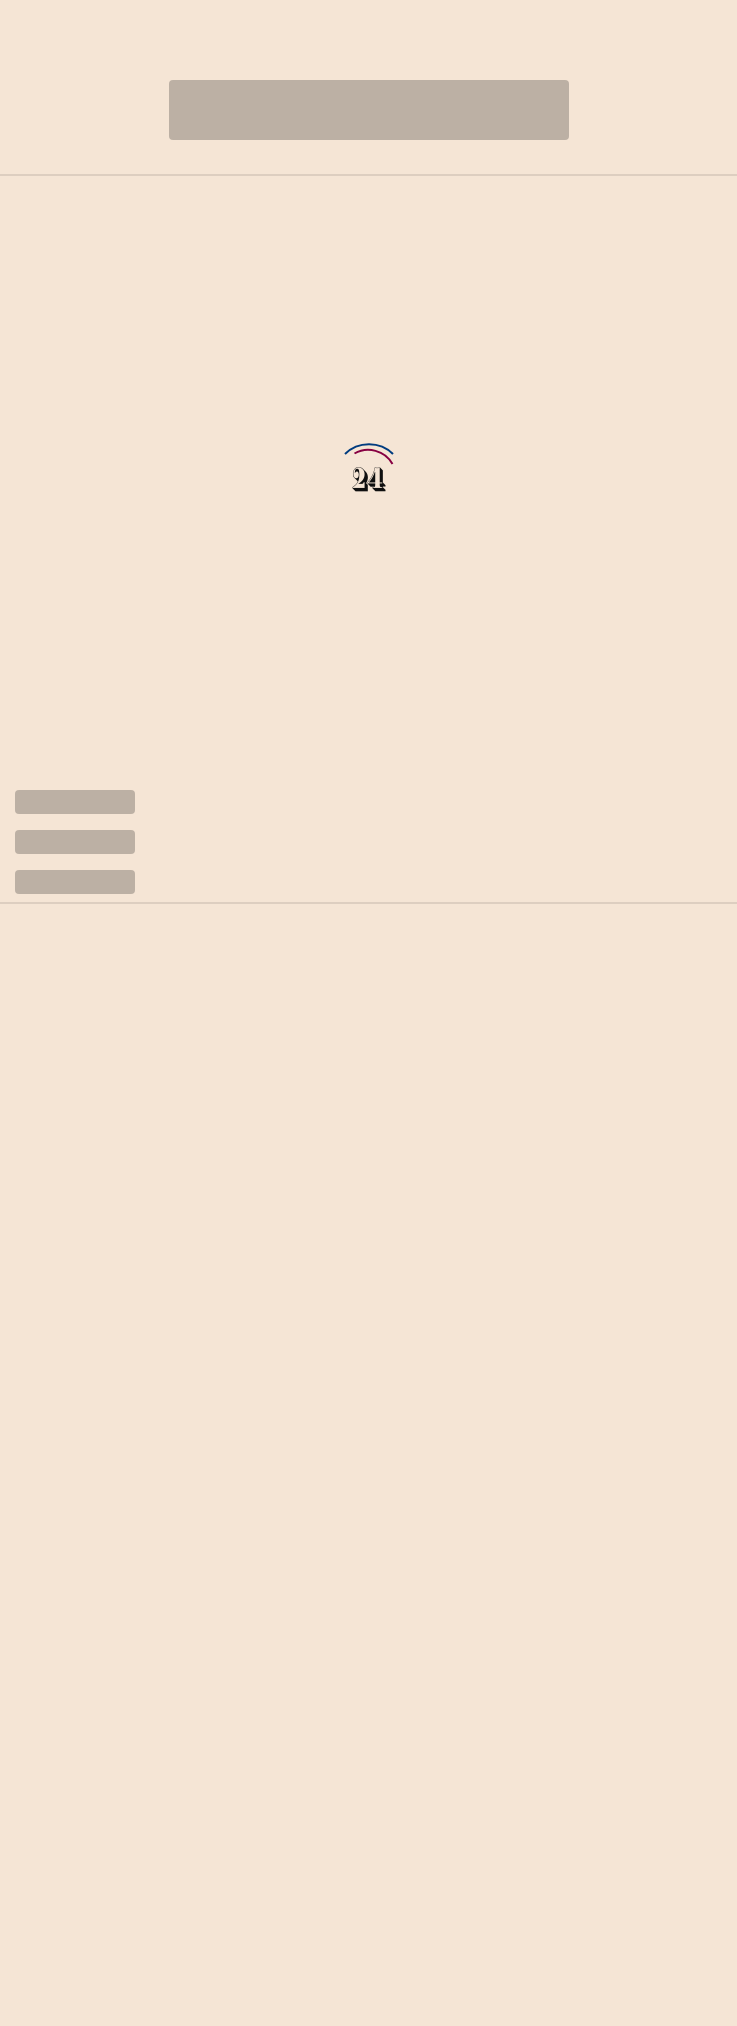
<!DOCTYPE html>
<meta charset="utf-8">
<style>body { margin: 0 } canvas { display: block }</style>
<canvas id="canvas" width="737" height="2026"></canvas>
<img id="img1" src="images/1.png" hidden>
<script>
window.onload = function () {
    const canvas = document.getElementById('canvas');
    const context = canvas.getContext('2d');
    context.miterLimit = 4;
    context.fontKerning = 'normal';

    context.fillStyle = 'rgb(245, 229, 213)';
    context.fillRect(0, 0, 737, 2026);
    context.fillStyle = 'rgb(221, 206, 192)';
    context.fillRect(0, 174, 737, 2);
    context.fillStyle = 'rgb(188, 176, 164)';
    context.beginPath();
    context.roundRect(169, 80, 400, 60, 4);
    context.fill();
    context.beginPath();
    context.moveTo(345, 454);
    context.bezierCurveTo(358, 441, 380, 441, 393, 454);
    context.strokeStyle = 'rgb(0, 60, 127)';
    context.lineWidth = 2;
    context.stroke();
    context.beginPath();
    context.moveTo(354.5, 453.5);
    context.bezierCurveTo(367.5, 446, 385, 450.5, 392.5, 464);
    context.strokeStyle = 'rgb(135, 0, 66)';
    context.stroke();
    context.drawImage(document.getElementById('img1'), 352, 467, 34, 25);
    context.beginPath();
    context.roundRect(15, 790, 120, 24, 4);
    context.fill();
    context.beginPath();
    context.roundRect(15, 830, 120, 24, 4);
    context.fill();
    context.fillStyle = 'rgb(221, 206, 192)';
    context.fillRect(0, 902, 737, 2);
    context.fillStyle = 'rgb(188, 176, 164)';
    context.beginPath();
    context.roundRect(15, 870, 120, 24, 4);
    context.fill();
};
</script>
